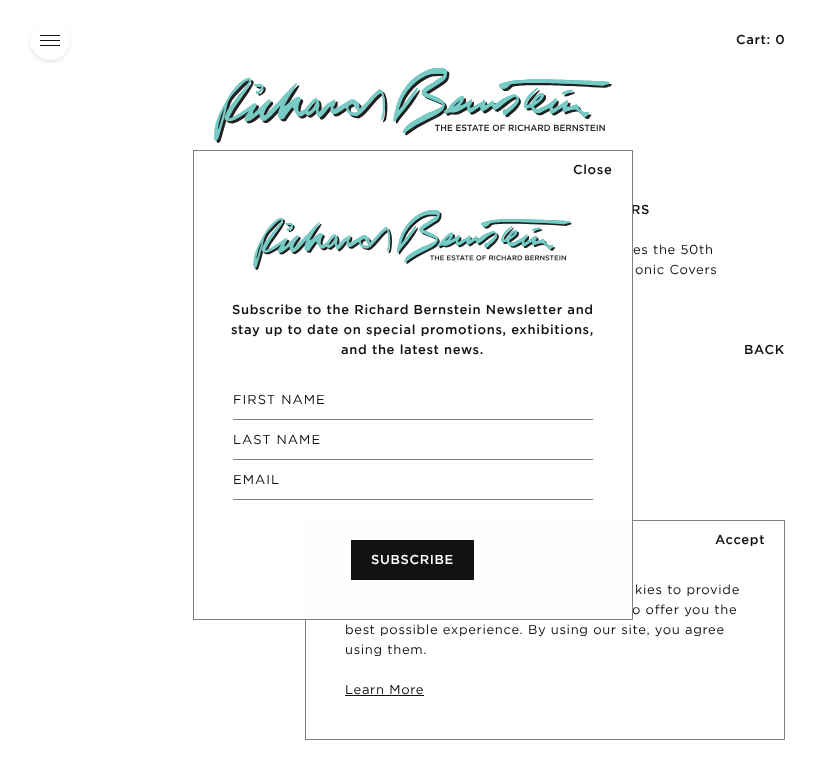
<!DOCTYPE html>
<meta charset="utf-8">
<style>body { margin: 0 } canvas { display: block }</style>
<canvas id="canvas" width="825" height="770"></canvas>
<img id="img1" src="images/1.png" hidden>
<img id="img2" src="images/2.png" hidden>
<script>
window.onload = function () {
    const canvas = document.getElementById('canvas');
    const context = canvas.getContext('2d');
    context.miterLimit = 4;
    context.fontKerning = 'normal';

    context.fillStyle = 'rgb(255, 255, 255)';
    context.fillRect(0, 0, 825, 770);
    context.fillStyle = 'rgba(0, 0, 0, 0.05)';
    context.filter = 'blur(2.5px)';
    context.beginPath();
    context.roundRect(30, 22, 40, 40, 20);
    context.fill();
    context.filter = 'none';
    context.filter = 'blur(1.5px)';
    context.beginPath();
    context.roundRect(30, 22, 40, 40, 20);
    context.fill();
    context.filter = 'none';
    context.fillStyle = 'rgb(255, 255, 255)';
    context.beginPath();
    context.arc(50, 40, 20, 0, 2 * Math.PI);
    context.fill();
    context.fillStyle = 'rgb(17, 17, 17)';
    context.fillRect(40, 35, 20, 1);
    context.fillRect(40, 40, 20, 1);
    context.fillRect(40, 45, 20, 1);
    context.drawImage(document.getElementById('img1'), 214, 68, 398, 75);
    context.strokeStyle = 'rgb(128, 128, 128)';
    context.strokeRect(305.5, 520.5, 479, 219);
    context.fillRect(345, 695, 79, 1);
    context.fillStyle = 'rgb(254, 254, 254)';
    context.fillRect(305, 520, 327, 99);
    context.letterSpacing = '0.65px';
    context.font = '500 13px Gotham';
    context.fillStyle = 'rgb(17, 17, 17)';
    context.fillText('Cart: 0', 736, 44);
    context.fillText('RS', 631, 214);
    context.font = '13px Gotham';
    context.fillText('es the 50th', 633, 254);
    context.fillText('onic Covers', 635, 274);
    context.font = '500 13px Gotham';
    context.fillText('BACK', 744, 354);
    context.fillText('Accept', 715, 544);
    context.font = '13px Gotham';
    context.fillText('kies to provide', 635, 594);
    context.fillText('o offer you the', 632, 614);
    context.fillText('best possible experience. By using our site, you agree', 345, 634);
    context.fillText('using them.', 345, 654);
    context.fillText('Learn More', 345, 694);
    context.strokeStyle = 'rgb(127, 127, 127)';
    context.strokeRect(193.5, 150.5, 439, 469);
    context.font = '500 13px Gotham';
    context.fillText('Close', 573, 174);
    context.drawImage(document.getElementById('img2'), 253, 210, 319, 60);
    context.fillText('Subscribe to the Richard Bernstein Newsletter and', 232, 314);
    context.fillText('stay up to date on special promotions, exhibitions,', 231, 334);
    context.fillText('and the latest news.', 341, 354);
    context.fillStyle = 'rgb(127, 127, 127)';
    context.fillRect(233, 419, 360, 1);
    context.letterSpacing = '1px';
    context.font = '13px Gotham';
    context.fillStyle = 'rgb(17, 17, 17)';
    context.fillText('FIRST NAME', 233, 404);
    context.fillStyle = 'rgb(127, 127, 127)';
    context.fillRect(233, 459, 360, 1);
    context.fillStyle = 'rgb(17, 17, 17)';
    context.fillText('LAST NAME', 233, 444);
    context.fillStyle = 'rgb(127, 127, 127)';
    context.fillRect(233, 499, 360, 1);
    context.fillStyle = 'rgb(17, 17, 17)';
    context.fillText('EMAIL', 233, 484);
    context.fillRect(351, 540, 123, 40);
    context.letterSpacing = '0.65px';
    context.font = '500 13px Gotham';
    context.fillStyle = 'rgb(255, 255, 255)';
    context.fillText('SUBSCRIBE', 371, 564);
};
</script>
